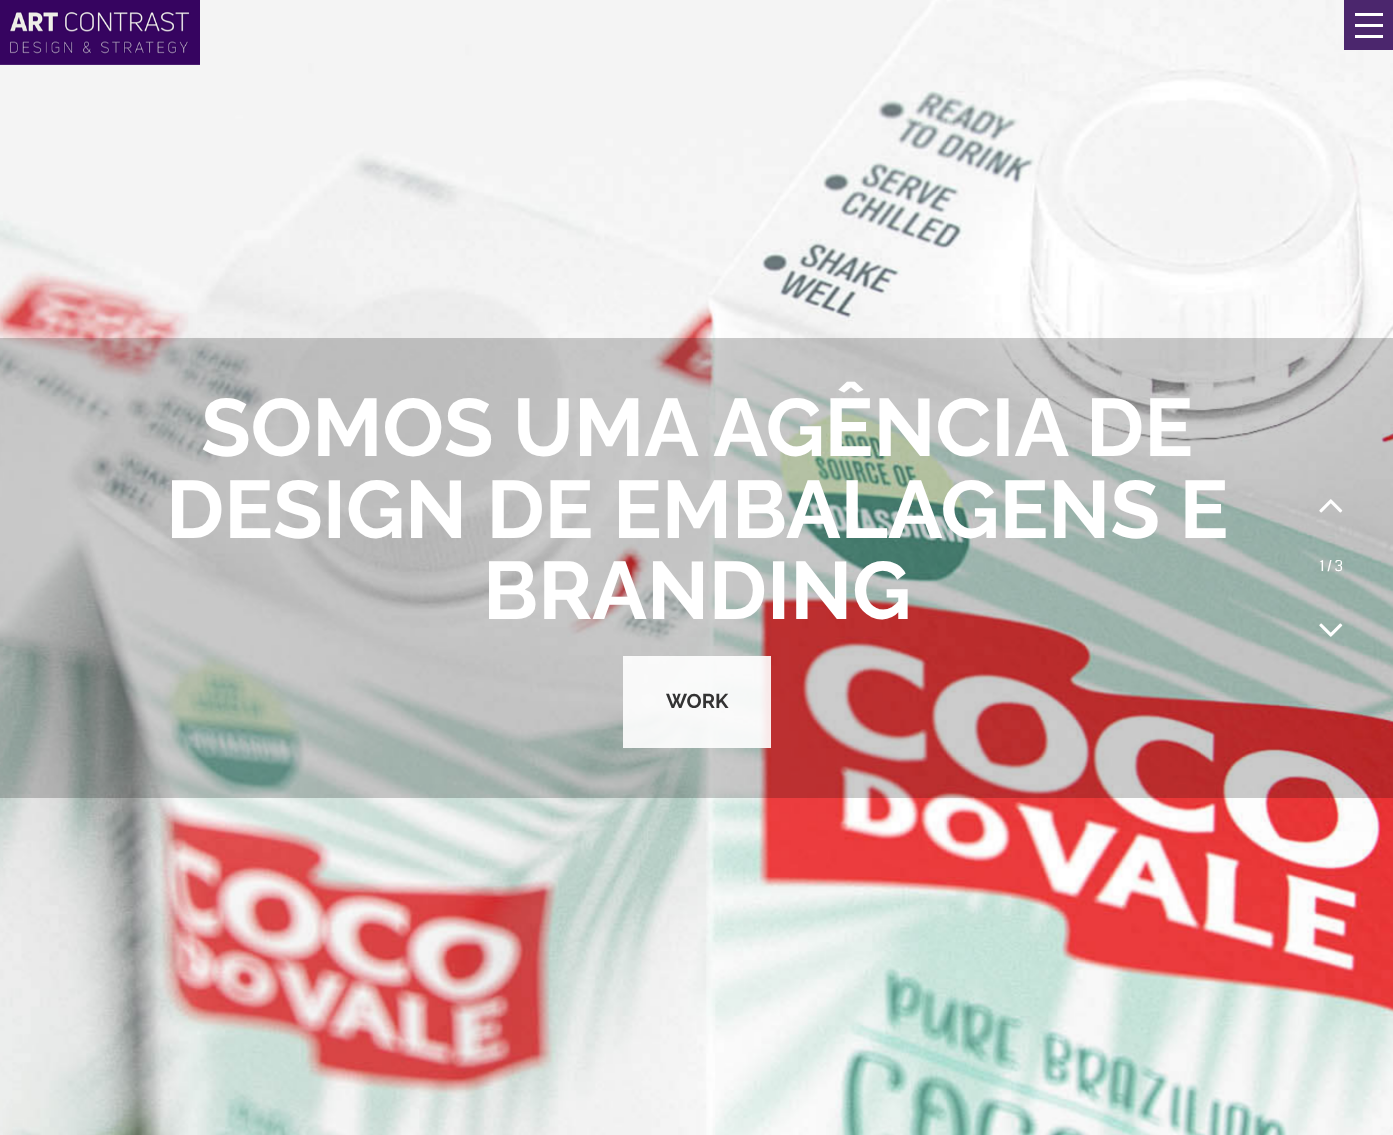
<!DOCTYPE html>
<meta charset="utf-8">
<style>body { margin: 0 } canvas { display: block }</style>
<canvas id="canvas" width="1393" height="1135"></canvas>
<img id="img1" src="images/2.png" hidden>
<img id="img2" src="images/1.png" hidden>
<img id="img3" src="images/3.png" hidden>
<img id="img4" src="images/4.png" hidden>
<script>
window.onload = function () {
    const canvas = document.getElementById('canvas');
    const context = canvas.getContext('2d');
    context.miterLimit = 4;
    context.fontKerning = 'normal';

    context.fillStyle = 'rgb(255, 255, 255)';
    context.fillRect(0, 0, 1393, 1135);
    context.drawImage(document.getElementById('img1'), 0, 0, 1393, 1135);
    context.drawImage(document.getElementById('img2'), 0, 0, 200, 65);
    context.fillStyle = 'rgba(57, 16, 94, 0.9)';
    context.fillRect(1344, 0, 49, 50);
    context.fillStyle = 'rgb(255, 255, 255)';
    context.fillRect(1355, 13, 28, 3);
    context.fillRect(1355, 24, 28, 3);
    context.fillRect(1355, 35, 28, 3);
    context.fillStyle = 'rgba(0, 0, 0, 0.2)';
    context.fillRect(0, 338, 1393, 460);
    context.fillStyle = 'rgba(255, 255, 255, 0.9)';
    context.fillRect(623, 656, 148, 92);
    context.drawImage(document.getElementById('img3'), 1319, 499, 24, 14);
    context.drawImage(document.getElementById('img4'), 1319, 623, 24, 14);
    context.font = 'bold 81.25px Raleway';
    context.fillStyle = 'rgb(255, 255, 255)';
    context.fillText('SOMOS UMA AGÊNCIA DE', 201, 456);
    context.fillText('DESIGN DE EMBALAGENS E', 166, 538);
    context.fillText('BRANDING', 483, 619);
    context.font = 'bold 20px Raleway';
    context.fillStyle = 'rgb(51, 51, 51)';
    context.fillText('WORK', 666, 708);
    context.font = '15px Coda';
    context.fillStyle = 'rgb(255, 255, 255)';
    context.fillText('1 / 3', 1320, 571);
};
</script>
